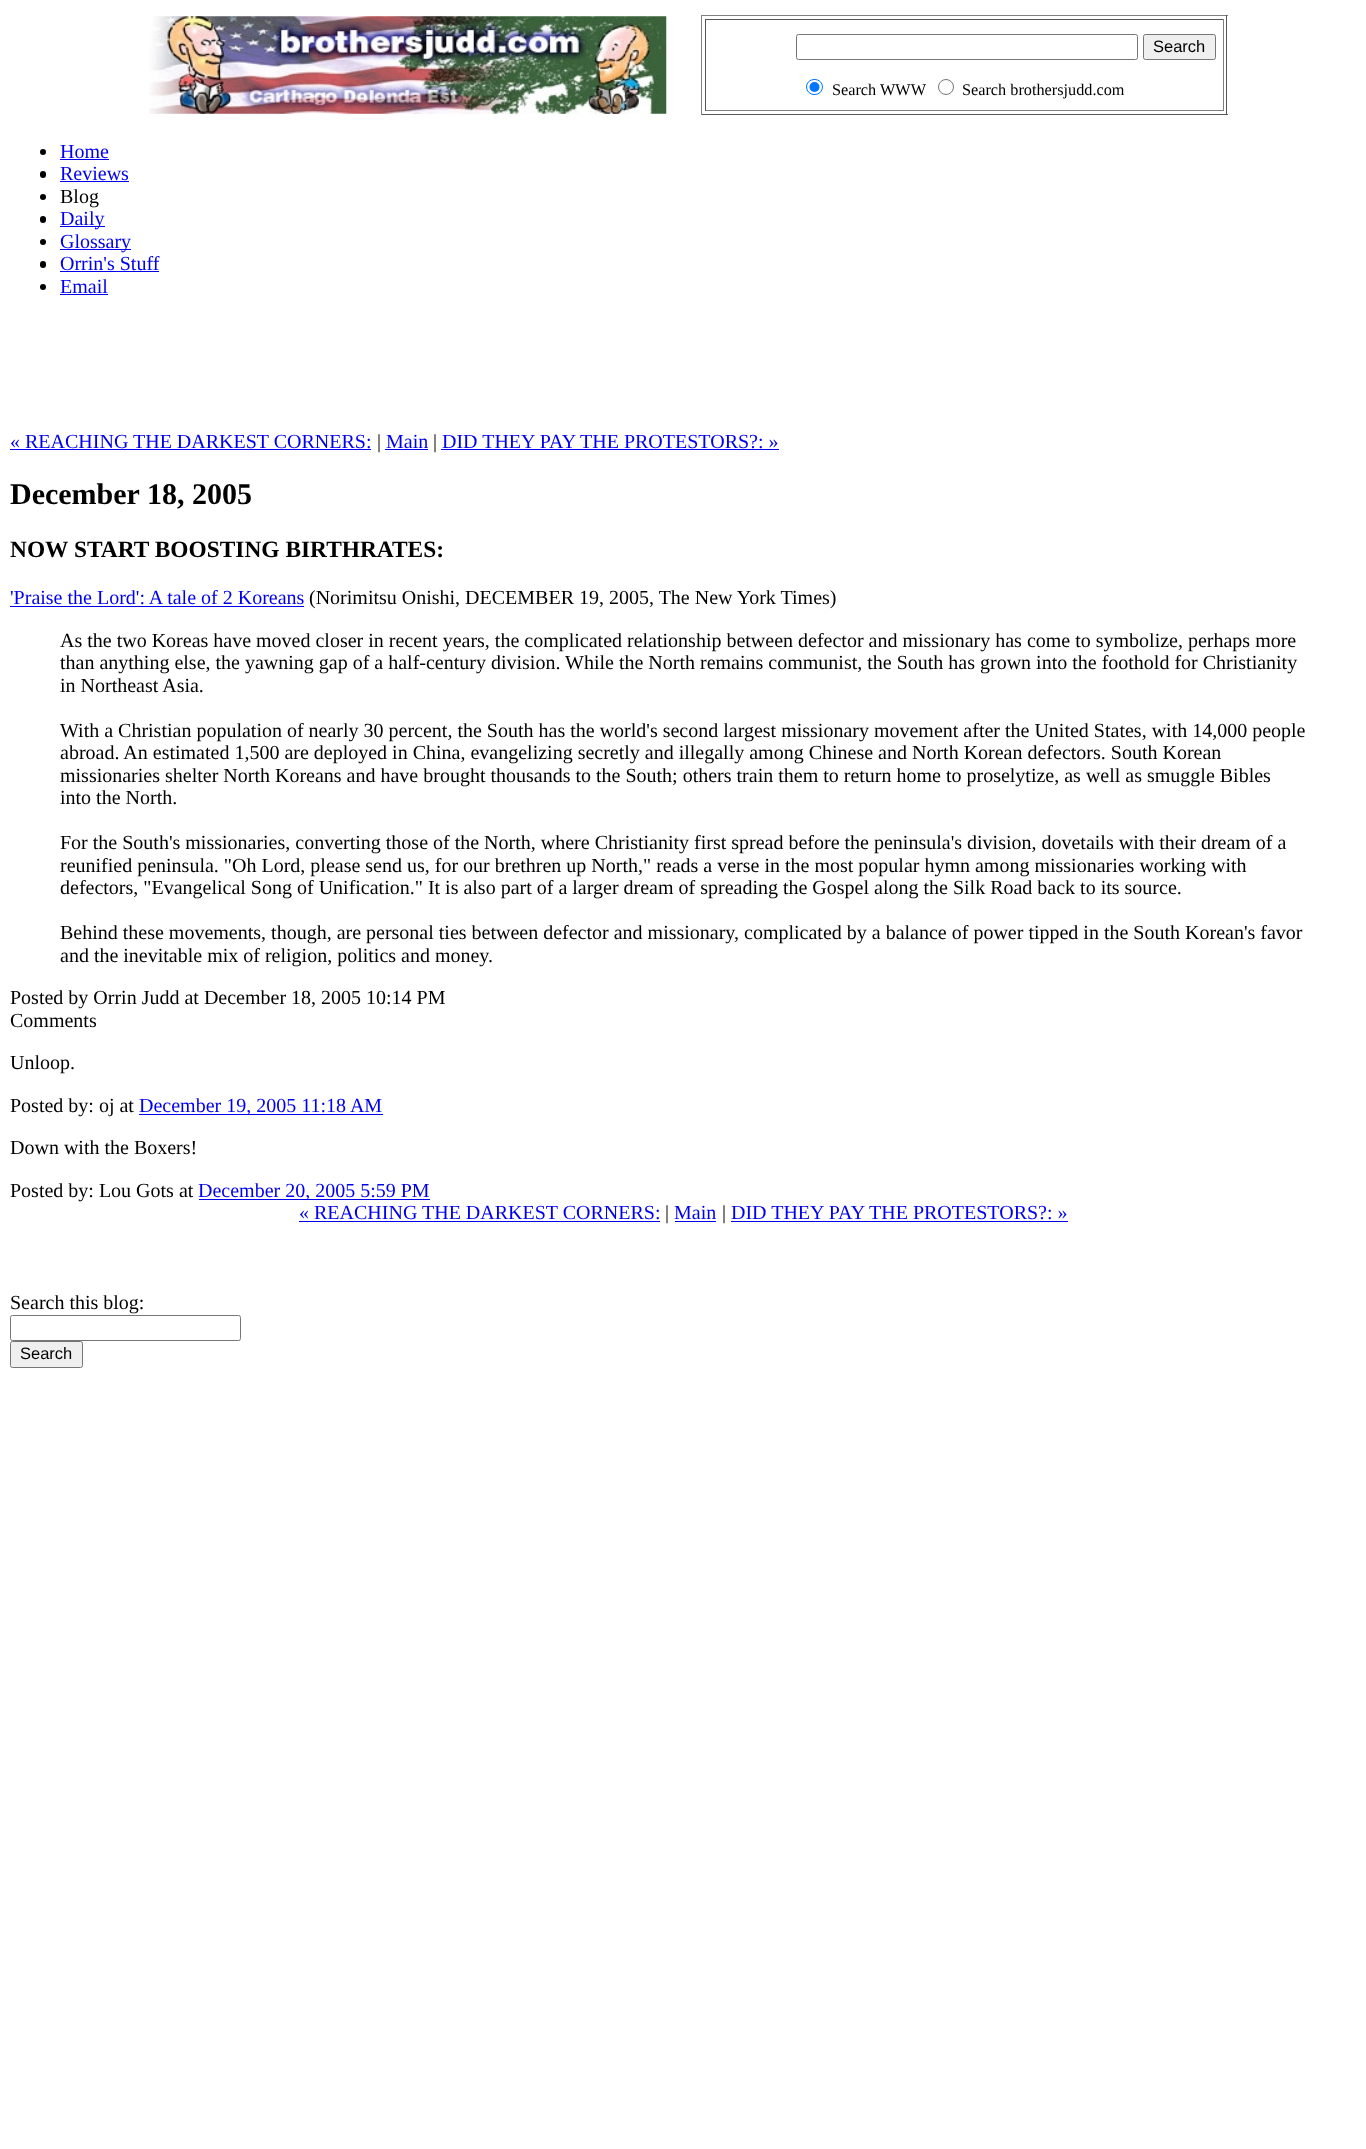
<!DOCTYPE html>
<meta charset="utf-8">
<style>body { margin: 0 } canvas { display: block }</style>
<canvas id="canvas" width="1366" height="2149"></canvas>
<img id="img1" src="images/1.png" hidden>
<script>
window.onload = function () {
    const canvas = document.getElementById('canvas');
    const context = canvas.getContext('2d');
    context.miterLimit = 4;
    context.fontKerning = 'normal';

    context.fillStyle = 'rgb(255, 255, 255)';
    context.fillRect(0, 0, 1366, 2149);
    context.drawImage(document.getElementById('img1'), 149, 16, 518, 98);
    context.fillStyle = 'rgb(128, 128, 128)';
    context.fillRect(701, 15, 527, 1);
    context.fillStyle = 'rgb(85, 85, 85)';
    context.fillRect(1226, 15, 1, 100);
    context.fillRect(701, 114, 527, 1);
    context.fillStyle = 'rgb(128, 128, 128)';
    context.fillRect(701, 15, 1, 100);
    context.fillStyle = 'rgb(85, 85, 85)';
    context.fillRect(705, 19, 519, 1);
    context.fillStyle = 'rgb(128, 128, 128)';
    context.fillRect(1223, 19, 1, 92);
    context.fillRect(705, 110, 519, 1);
    context.fillStyle = 'rgb(85, 85, 85)';
    context.fillRect(705, 19, 1, 92);
    context.beginPath();
    context.roundRect(796.5, 34.5, 341, 25, 2);
    context.strokeStyle = 'rgb(118, 118, 118)';
    context.stroke();
    context.fillStyle = 'rgb(239, 239, 239)';
    context.beginPath();
    context.roundRect(1143.5, 34.5, 72, 25, 2);
    context.fill();
    context.stroke();
    context.beginPath();
    context.roundRect(806.5, 79.5, 16, 15, 7.5);
    context.strokeStyle = 'rgb(0, 117, 255)';
    context.stroke();
    context.fillStyle = 'rgb(0, 117, 255)';
    context.beginPath();
    context.arc(814.5, 87, 5, 0, 2 * Math.PI);
    context.fill();
    context.beginPath();
    context.arc(946, 87, 7.5, 0, 2 * Math.PI);
    context.strokeStyle = 'rgb(118, 118, 118)';
    context.stroke();
    context.fillStyle = 'rgb(0, 0, 0)';
    context.beginPath();
    context.arc(43, 152, 3, 0, 2 * Math.PI);
    context.fill();
    context.fillStyle = 'rgb(0, 0, 238)';
    context.fillRect(60, 159, 49, 1);
    context.fillStyle = 'rgb(0, 0, 0)';
    context.beginPath();
    context.roundRect(40, 171, 6, 7, 3);
    context.fill();
    context.fillStyle = 'rgb(0, 0, 238)';
    context.fillRect(60, 181, 69, 1);
    context.fillStyle = 'rgb(0, 0, 0)';
    context.beginPath();
    context.arc(43, 197, 3, 0, 2 * Math.PI);
    context.fill();
    context.beginPath();
    context.roundRect(40, 216, 6, 7, 3);
    context.fill();
    context.fillStyle = 'rgb(0, 0, 238)';
    context.fillRect(60, 226, 45, 1);
    context.fillStyle = 'rgb(0, 0, 0)';
    context.beginPath();
    context.arc(43, 242, 3, 0, 2 * Math.PI);
    context.fill();
    context.fillStyle = 'rgb(0, 0, 238)';
    context.fillRect(60, 249, 71, 1);
    context.fillStyle = 'rgb(0, 0, 0)';
    context.beginPath();
    context.roundRect(40, 261, 6, 7, 3);
    context.fill();
    context.fillStyle = 'rgb(0, 0, 238)';
    context.fillRect(60, 271, 99, 1);
    context.fillStyle = 'rgb(0, 0, 0)';
    context.beginPath();
    context.arc(43, 287, 3, 0, 2 * Math.PI);
    context.fill();
    context.fillStyle = 'rgb(0, 0, 238)';
    context.fillRect(60, 294, 48, 1);
    context.fillRect(10, 449, 361, 1);
    context.fillRect(385, 449, 43, 1);
    context.fillRect(441, 449, 338, 1);
    context.fillRect(10, 606, 294, 1);
    context.fillRect(139, 1114, 244, 1);
    context.fillRect(199, 1199, 231, 1);
    context.fillRect(299, 1221, 361, 1);
    context.fillRect(675, 1221, 41, 1);
    context.fillRect(731, 1221, 337, 1);
    context.beginPath();
    context.roundRect(10.5, 1315.5, 230, 25, 2);
    context.stroke();
    context.fillStyle = 'rgb(239, 239, 239)';
    context.beginPath();
    context.roundRect(10.5, 1341.5, 72, 26, 2);
    context.fill();
    context.stroke();
    context.font = '16.5px Liberation Sans';
    context.fillStyle = 'rgb(0, 0, 0)';
    context.fillText('Search', 1153, 52);
    context.font = '16.25px Liberation Serif';
    context.fillText('Search WWW', 832, 95);
    context.fillText('Search brothersjudd.com', 962, 95);
    context.font = '20px Liberation Serif';
    context.fillStyle = 'rgb(0, 0, 238)';
    context.fillText('Home', 60, 158);
    context.fillText('Reviews', 60, 180);
    context.fillStyle = 'rgb(0, 0, 0)';
    context.fillText('Blog', 60, 203);
    context.fillStyle = 'rgb(0, 0, 238)';
    context.fillText('Daily', 60, 225);
    context.fillText('Glossary', 60, 248);
    context.fillText('Orrin\'s Stuff', 60, 270);
    context.fillText('Email', 60, 293);
    context.fillText('« REACHING THE DARKEST CORNERS:', 10, 448);
    context.fillStyle = 'rgb(0, 0, 0)';
    context.fillText('|', 377, 448);
    context.fillStyle = 'rgb(0, 0, 238)';
    context.fillText('Main', 386, 448);
    context.fillStyle = 'rgb(0, 0, 0)';
    context.fillText('|', 433, 448);
    context.fillStyle = 'rgb(0, 0, 238)';
    context.fillText('DID THEY PAY THE PROTESTORS?: »', 442, 448);
    context.font = 'bold 30px Liberation Serif';
    context.fillStyle = 'rgb(0, 0, 0)';
    context.fillText('December 18, 2005', 10, 504);
    context.font = 'bold 23.4px Liberation Serif';
    context.fillText('NOW START BOOSTING BIRTHRATES:', 10, 557);
    context.font = '20px Liberation Serif';
    context.fillStyle = 'rgb(0, 0, 238)';
    context.fillText('\'Praise the Lord\': A tale of 2 Koreans', 10, 604);
    context.fillStyle = 'rgb(0, 0, 0)';
    context.fillText('(Norimitsu Onishi, DECEMBER 19, 2005, The New York Times)', 309, 604);
    context.fillText('As the two Koreas have moved closer in recent years, the complicated relationship between defector and missionary has come to symbolize, perhaps more', 60, 647);
    context.fillText('than anything else, the yawning gap of a half-century division. While the North remains communist, the South has grown into the foothold for Christianity', 60, 669);
    context.fillText('in Northeast Asia.', 60, 692);
    context.fillText('With a Christian population of nearly 30 percent, the South has the world\'s second largest missionary movement after the United States, with 14,000 people', 60, 737);
    context.fillText('abroad. An estimated 1,500 are deployed in China, evangelizing secretly and illegally among Chinese and North Korean defectors. South Korean', 60, 759);
    context.fillText('missionaries shelter North Koreans and have brought thousands to the South; others train them to return home to proselytize, as well as smuggle Bibles', 60, 782);
    context.fillText('into the North.', 60, 804);
    context.fillText('For the South\'s missionaries, converting those of the North, where Christianity first spread before the peninsula\'s division, dovetails with their dream of a', 60, 849);
    context.fillText('reunified peninsula. "Oh Lord, please send us, for our brethren up North," reads a verse in the most popular hymn among missionaries working with', 60, 872);
    context.fillText('defectors, "Evangelical Song of Unification." It is also part of a larger dream of spreading the Gospel along the Silk Road back to its source.', 60, 894);
    context.fillText('Behind these movements, though, are personal ties between defector and missionary, complicated by a balance of power tipped in the South Korean\'s favor', 60, 939);
    context.fillText('and the inevitable mix of religion, politics and money.', 60, 962);
    context.fillText('Posted by Orrin Judd at December 18, 2005 10:14 PM', 10, 1004);
    context.fillText('Comments', 10, 1027);
    context.fillText('Unloop.', 10, 1069);
    context.fillText('Posted by: oj at', 10, 1112);
    context.fillStyle = 'rgb(0, 0, 238)';
    context.fillText('December 19, 2005 11:18 AM', 139, 1112);
    context.fillStyle = 'rgb(0, 0, 0)';
    context.fillText('Down with the Boxers!', 10, 1154);
    context.fillText('Posted by: Lou Gots at', 10, 1197);
    context.fillStyle = 'rgb(0, 0, 238)';
    context.fillText('December 20, 2005 5:59 PM', 198, 1197);
    context.fillText('« REACHING THE DARKEST CORNERS:', 299, 1219);
    context.fillStyle = 'rgb(0, 0, 0)';
    context.fillText('|', 665, 1219);
    context.fillStyle = 'rgb(0, 0, 238)';
    context.fillText('Main', 674, 1219);
    context.fillStyle = 'rgb(0, 0, 0)';
    context.fillText('|', 722, 1219);
    context.fillStyle = 'rgb(0, 0, 238)';
    context.fillText('DID THEY PAY THE PROTESTORS?: »', 731, 1219);
    context.fillStyle = 'rgb(0, 0, 0)';
    context.fillText('Search this blog:', 10, 1309);
    context.font = '16.5px Liberation Sans';
    context.fillText('Search', 20, 1359);
};
</script>
